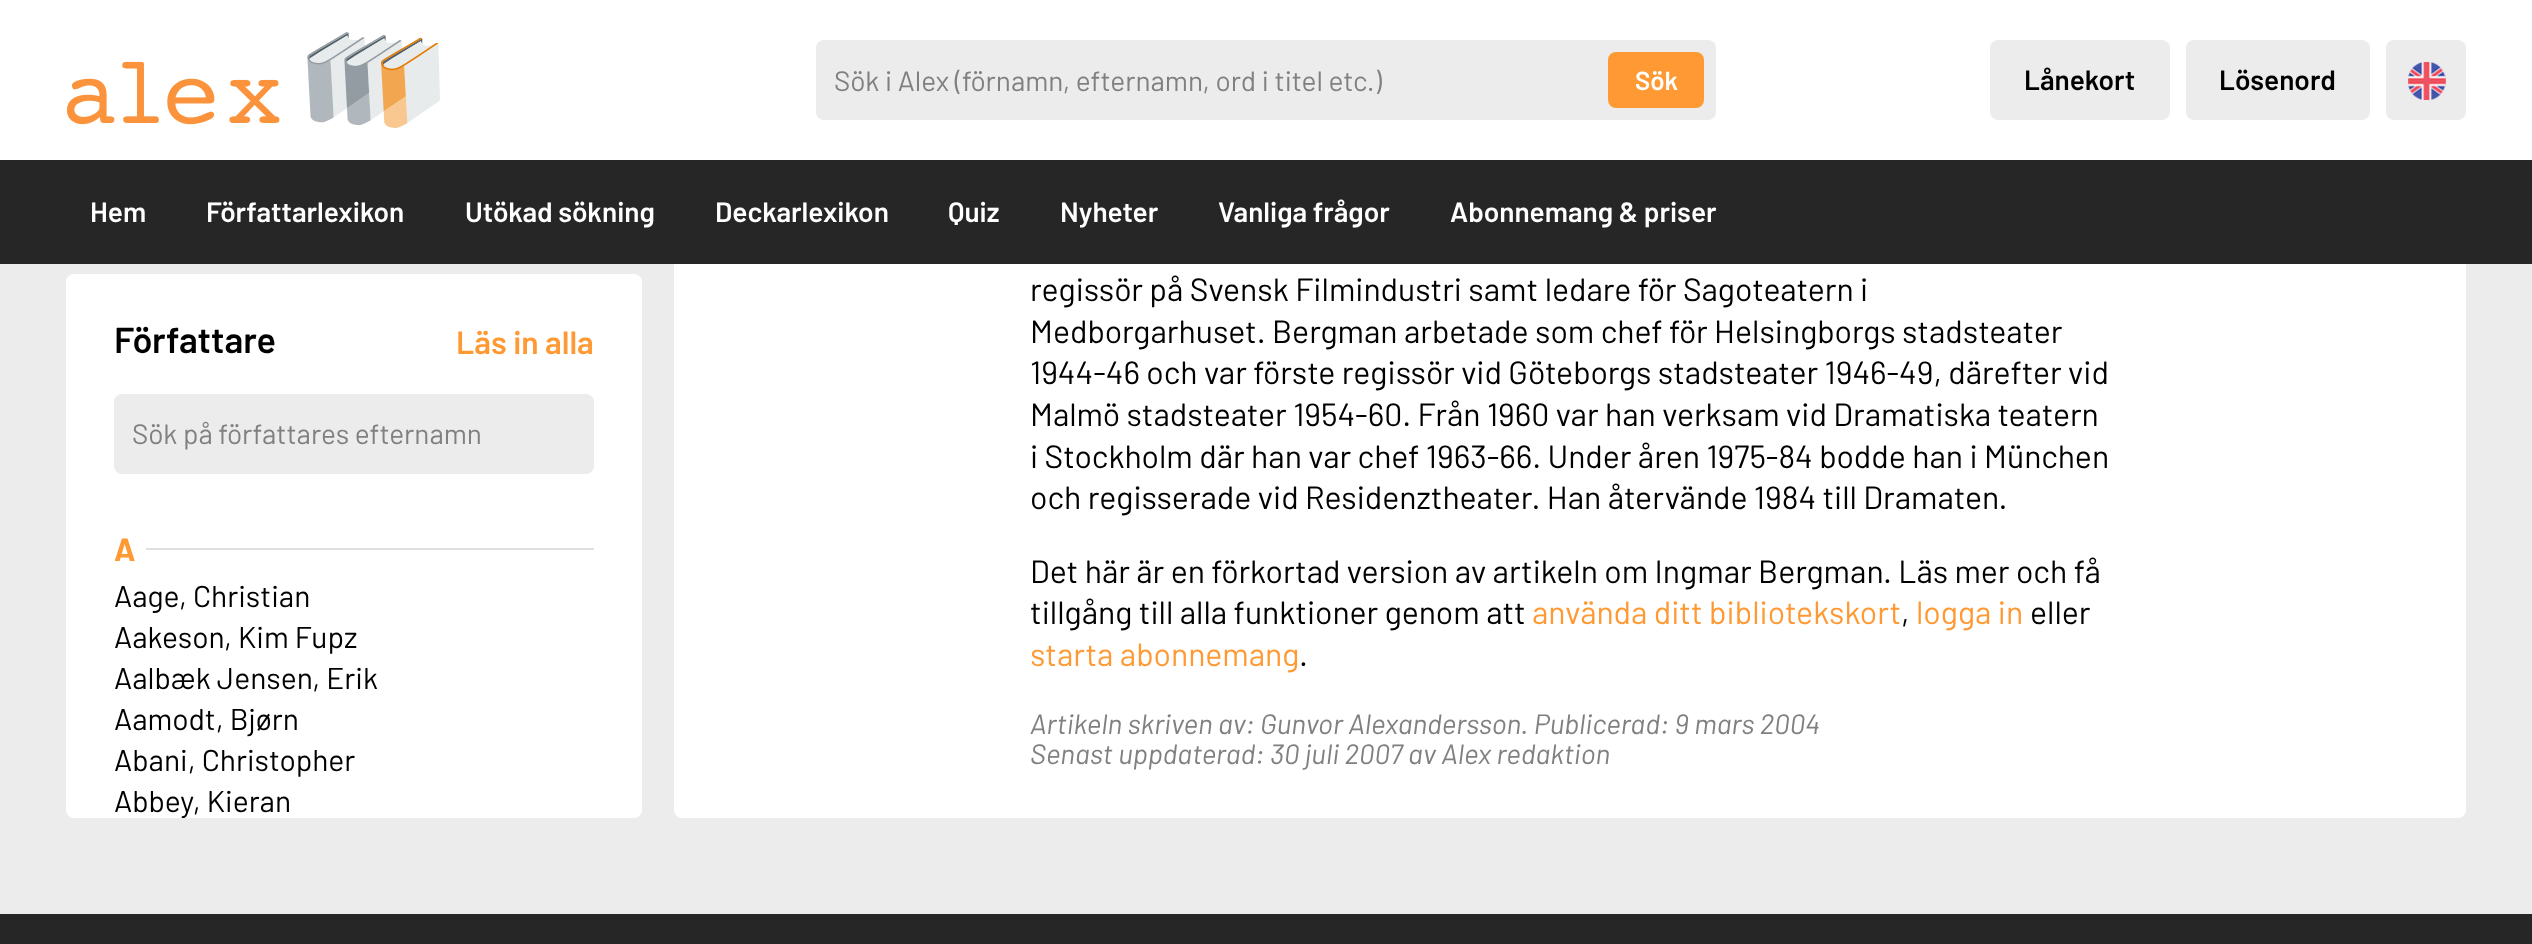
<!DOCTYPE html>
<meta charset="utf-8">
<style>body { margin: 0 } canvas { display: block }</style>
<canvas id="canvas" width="2532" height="944"></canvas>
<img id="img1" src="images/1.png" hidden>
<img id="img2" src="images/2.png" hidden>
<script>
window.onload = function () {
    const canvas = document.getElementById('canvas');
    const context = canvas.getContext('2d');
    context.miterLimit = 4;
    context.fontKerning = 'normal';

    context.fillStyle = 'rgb(236, 236, 236)';
    context.fillRect(0, 0, 2532, 944);
    context.fillStyle = 'rgb(255, 255, 255)';
    context.beginPath();
    context.roundRect(674, 14, 1792, 804, [0, 8, 8, 8]);
    context.fill();
    context.fillRect(0, 0, 2532, 160);
    context.fillStyle = 'rgb(38, 38, 38)';
    context.fillRect(0, 160, 2532, 104);
    context.fillStyle = 'rgb(236, 236, 236)';
    context.beginPath();
    context.roundRect(1990, 40, 180, 80, 8);
    context.fill();
    context.beginPath();
    context.roundRect(2186, 40, 184, 80, 8);
    context.fill();
    context.beginPath();
    context.roundRect(2386, 40, 80, 80, 8);
    context.fill();
    context.drawImage(document.getElementById('img1'), 2408, 62, 38, 38);
    context.drawImage(document.getElementById('img2'), 67, 32, 373, 96);
    context.beginPath();
    context.roundRect(816, 40, 900, 80, 8);
    context.fill();
    context.fillStyle = 'rgb(255, 153, 51)';
    context.beginPath();
    context.roundRect(1608, 52, 96, 56, 8);
    context.fill();
    context.fillStyle = 'rgb(255, 255, 255)';
    context.beginPath();
    context.roundRect(66, 274, 576, 248, [8, 8, 0, 0]);
    context.fill();
    context.fillStyle = 'rgb(236, 236, 236)';
    context.beginPath();
    context.roundRect(114, 394, 480, 80, 8);
    context.fill();
    context.fillStyle = 'rgb(255, 255, 255)';
    context.beginPath();
    context.roundRect(66, 522, 576, 296, [0, 0, 8, 8]);
    context.fill();
    context.fillStyle = 'rgb(223, 223, 223)';
    context.fillRect(146, 548, 448, 2);
    context.fillStyle = 'rgb(38, 38, 38)';
    context.fillRect(0, 914, 2532, 30);
    context.font = '600 28px Barlow';
    context.fillStyle = 'rgb(0, 0, 0)';
    context.fillText('Lånekort', 2024, 90);
    context.fillText('Lösenord', 2219, 90);
    context.fillStyle = 'rgb(255, 255, 255)';
    context.fillText('Hem', 90, 222);
    context.fillText('Författarlexikon', 206, 222);
    context.fillText('Utökad sökning', 465, 222);
    context.fillText('Deckarlexikon', 715, 222);
    context.fillText('Quiz', 948, 222);
    context.fillText('Nyheter', 1060, 222);
    context.fillText('Vanliga frågor', 1218, 222);
    context.fillText('Abonnemang & priser', 1450, 222);
    context.font = '28px Barlow';
    context.fillStyle = 'rgb(128, 128, 128)';
    context.fillText('Sök i Alex (förnamn, efternamn, ord i titel etc.)', 834, 91);
    context.font = '600 26px Barlow';
    context.fillStyle = 'rgb(255, 255, 255)';
    context.fillText('Sök', 1635, 90);
    context.font = '600 36px Barlow';
    context.fillStyle = 'rgb(0, 0, 0)';
    context.fillText('Författare', 114, 353);
    context.font = '600 32px Barlow';
    context.fillStyle = 'rgb(255, 153, 51)';
    context.fillText('Läs in alla', 456, 354);
    context.font = '28px Barlow';
    context.fillStyle = 'rgb(128, 128, 128)';
    context.fillText('Sök på författares efternamn', 132, 444);
    context.font = 'bold 32px Barlow';
    context.fillStyle = 'rgb(255, 153, 51)';
    context.fillText('A', 114, 561);
    context.font = '30px Barlow';
    context.fillStyle = 'rgb(0, 0, 0)';
    context.fillText('Aage, Christian', 114, 607);
    context.fillText('Aakeson, Kim Fupz', 114, 648);
    context.fillText('Aalbæk Jensen, Erik', 114, 689);
    context.fillText('Aamodt, Bjørn', 114, 730);
    context.fillText('Abani, Christopher', 114, 771);
    context.fillText('Abbey, Kieran', 114, 812);
    context.font = '32px Barlow';
    context.fillText('regissör på Svensk Filmindustri samt ledare för Sagoteatern i', 1030, 301);
    context.fillText('Medborgarhuset. Bergman arbetade som chef för Helsingborgs stadsteater', 1030, 343);
    context.fillText('1944-46 och var förste regissör vid Göteborgs stadsteater 1946-49, därefter vid', 1030, 384);
    context.fillText('Malmö stadsteater 1954-60. Från 1960 var han verksam vid Dramatiska teatern', 1030, 426);
    context.fillText('i Stockholm där han var chef 1963-66. Under åren 1975-84 bodde han i München', 1030, 468);
    context.fillText('och regisserade vid Residenztheater. Han återvände 1984 till Dramaten.', 1030, 509);
    context.fillText('Det här är en förkortad version av artikeln om Ingmar Bergman. Läs mer och få', 1030, 583);
    context.fillText('tillgång till alla funktioner genom att', 1030, 624);
    context.fillStyle = 'rgb(255, 153, 51)';
    context.fillText('använda ditt bibliotekskort', 1532, 624);
    context.fillStyle = 'rgb(0, 0, 0)';
    context.fillText(',', 1901, 624);
    context.fillStyle = 'rgb(255, 153, 51)';
    context.fillText('logga in', 1916, 624);
    context.fillStyle = 'rgb(0, 0, 0)';
    context.fillText('eller', 2030, 624);
    context.fillStyle = 'rgb(255, 153, 51)';
    context.fillText('starta abonnemang', 1030, 666);
    context.fillStyle = 'rgb(0, 0, 0)';
    context.fillText('.', 1299, 666);
    context.font = 'italic 28px Barlow';
    context.fillStyle = 'rgb(128, 128, 128)';
    context.fillText('Artikeln skriven av: Gunvor Alexandersson. Publicerad: 9 mars 2004', 1030, 734);
    context.fillText('Senast uppdaterad: 30 juli 2007 av Alex redaktion', 1030, 764);
};
</script>
